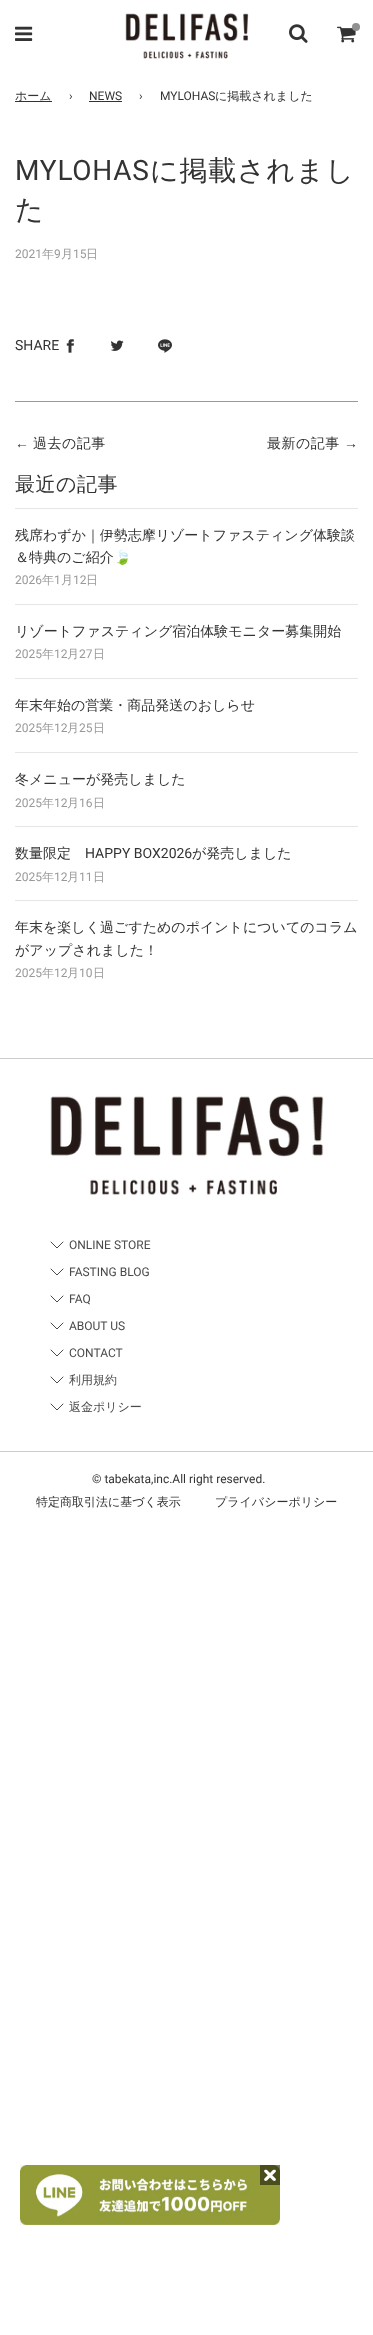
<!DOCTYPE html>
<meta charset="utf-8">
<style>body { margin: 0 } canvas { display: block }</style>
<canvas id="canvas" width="373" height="2335"></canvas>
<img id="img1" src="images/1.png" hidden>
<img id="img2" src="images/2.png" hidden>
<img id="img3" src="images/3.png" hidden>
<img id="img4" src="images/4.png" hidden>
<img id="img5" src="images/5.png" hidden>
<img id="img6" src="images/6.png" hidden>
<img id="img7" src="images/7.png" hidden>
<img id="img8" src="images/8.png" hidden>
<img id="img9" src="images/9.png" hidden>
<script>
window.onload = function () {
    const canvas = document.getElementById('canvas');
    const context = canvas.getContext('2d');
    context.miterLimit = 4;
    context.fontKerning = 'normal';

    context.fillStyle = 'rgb(255, 255, 255)';
    context.fillRect(0, 0, 373, 2335);
    context.drawImage(document.getElementById('img1'), 15, 26, 18, 15);
    context.drawImage(document.getElementById('img2'), 125, 13, 124, 46);
    context.drawImage(document.getElementById('img3'), 289, 24, 19, 19);
    context.drawImage(document.getElementById('img4'), 337, 26, 19, 17);
    context.fillStyle = 'rgb(145, 145, 145)';
    context.beginPath();
    context.arc(356, 27, 4, 0, 2 * Math.PI);
    context.fill();
    context.fillStyle = 'rgb(51, 51, 51)';
    context.fillRect(15, 101, 37, 1);
    context.fillRect(89, 101, 33, 1);
    context.drawImage(document.getElementById('img5'), 66, 339, 8, 14);
    context.drawImage(document.getElementById('img6'), 110, 340, 14, 11);
    context.drawImage(document.getElementById('img7'), 158, 339, 14, 14);
    context.fillStyle = 'rgb(153, 153, 153)';
    context.fillRect(15, 401, 343, 1);
    context.fillStyle = 'rgb(230, 230, 230)';
    context.fillRect(15, 508, 343, 1);
    context.fillRect(15, 604, 343, 1);
    context.fillRect(15, 678, 343, 1);
    context.fillRect(15, 752, 343, 1);
    context.fillRect(15, 826, 343, 1);
    context.fillRect(15, 900, 343, 1);
    context.fillStyle = 'rgb(204, 204, 204)';
    context.fillRect(0, 1058, 373, 1);
    context.drawImage(document.getElementById('img8'), 50, 1095, 274, 100);
    context.beginPath();
    context.moveTo(51, 1242);
    context.lineTo(57, 1248);
    context.lineTo(63, 1242);
    context.moveTo(51, 1269);
    context.lineTo(57, 1275);
    context.lineTo(63, 1269);
    context.moveTo(51, 1296);
    context.lineTo(57, 1302);
    context.lineTo(63, 1296);
    context.strokeStyle = 'rgb(74, 74, 74)';
    context.lineCap = 'round';
    context.lineJoin = 'round';
    context.stroke();
    context.beginPath();
    context.moveTo(51, 1323);
    context.lineTo(57, 1329);
    context.lineTo(63, 1323);
    context.moveTo(51, 1350);
    context.lineTo(57, 1356);
    context.lineTo(63, 1350);
    context.moveTo(51, 1377);
    context.lineTo(57, 1383);
    context.lineTo(63, 1377);
    context.stroke();
    context.beginPath();
    context.moveTo(51, 1404);
    context.lineTo(57, 1410);
    context.lineTo(63, 1404);
    context.stroke();
    context.fillRect(0, 1451, 373, 1);
    context.drawImage(document.getElementById('img9'), 20, 2165, 260, 60);
    context.fillStyle = 'rgba(0, 0, 0, 0.5)';
    context.fillRect(260, 2165, 20, 20);
    context.fillStyle = 'rgb(255, 255, 255)';
    context.beginPath();
    context.moveTo(275.5, 2170);
    context.bezierCurveTo(276, 2170.5, 276, 2171.5, 275.5, 2172);
    context.lineTo(267, 2180.5);
    context.bezierCurveTo(266, 2181, 265.5, 2181, 264.5, 2180.5);
    context.bezierCurveTo(264, 2180, 264, 2179, 264.5, 2178.5);
    context.lineTo(273, 2170);
    context.bezierCurveTo(274, 2169.5, 274.5, 2169.5, 275.5, 2170);
    context.closePath();
    context.fill();
    context.beginPath();
    context.moveTo(264.5, 2170);
    context.bezierCurveTo(265.5, 2169.5, 266, 2169.5, 267, 2170);
    context.lineTo(275.5, 2178.5);
    context.bezierCurveTo(276, 2179, 276, 2180, 275.5, 2180.5);
    context.bezierCurveTo(274.5, 2181, 274, 2181, 273, 2180.5);
    context.lineTo(264.5, 2172);
    context.bezierCurveTo(264, 2171.5, 264, 2170.5, 264.5, 2170);
    context.closePath();
    context.fill();
    context.font = '500 12px WenQuanYi Zen Hei';
    context.fillStyle = 'rgb(51, 51, 51)';
    context.fillText('ホーム', 15, 100);
    context.font = '12px Roboto';
    context.fillText('›', 69, 100);
    context.fillText('NEWS', 89, 100);
    context.fillText('›', 139, 100);
    context.fillText('MYLOHAS', 160, 100);
    context.font = '500 12px WenQuanYi Zen Hei';
    context.fillText('に掲載されました', 215, 100);
    context.letterSpacing = '0.75px';
    context.font = '28px Roboto';
    context.fillText('MYLOHAS', 15, 180);
    context.font = '500 28px WenQuanYi Zen Hei';
    context.fillText('に掲載されまし', 150, 180);
    context.fillText('た', 15, 219);
    context.letterSpacing = '0px';
    context.font = '12px Roboto';
    context.fillStyle = 'rgb(153, 153, 153)';
    context.fillText('2021', 15, 258);
    context.font = '500 12px WenQuanYi Zen Hei';
    context.fillText('年', 42, 258);
    context.font = '12px Roboto';
    context.fillText('9', 54, 258);
    context.font = '500 12px WenQuanYi Zen Hei';
    context.fillText('月', 61, 258);
    context.font = '12px Roboto';
    context.fillText('15', 73, 258);
    context.font = '500 12px WenQuanYi Zen Hei';
    context.fillText('日', 86, 258);
    context.font = '14px Roboto';
    context.fillStyle = 'rgb(51, 51, 51)';
    context.fillText('SHARE', 15, 350);
    context.letterSpacing = '0.5px';
    context.font = '14px Liberation Sans';
    context.fillText('←', 15, 448);
    context.font = '500 14px WenQuanYi Zen Hei';
    context.fillText('過去の記事', 33, 448);
    context.fillText('最新の記事', 267, 448);
    context.font = '14px Liberation Sans';
    context.fillText('→', 344, 448);
    context.font = '500 20px WenQuanYi Zen Hei';
    context.fillText('最近の記事', 15, 491);
    context.letterSpacing = '0px';
    context.font = '500 14px WenQuanYi Zen Hei';
    context.fillText('残席わずか｜伊勢志摩リゾートファスティング体験談', 15, 540);
    context.fillText('＆特典のご紹介', 15, 562);
    context.font = '14px Noto Color Emoji';
    context.fillText('🍃', 114, 562);
    context.font = '12px Roboto';
    context.fillStyle = 'rgb(153, 153, 153)';
    context.fillText('2026', 15, 584);
    context.font = '500 12px WenQuanYi Zen Hei';
    context.fillText('年', 42, 584);
    context.font = '12px Roboto';
    context.fillText('1', 54, 584);
    context.font = '500 12px WenQuanYi Zen Hei';
    context.fillText('月', 61, 584);
    context.font = '12px Roboto';
    context.fillText('12', 73, 584);
    context.font = '500 12px WenQuanYi Zen Hei';
    context.fillText('日', 86, 584);
    context.font = '500 14px WenQuanYi Zen Hei';
    context.fillStyle = 'rgb(51, 51, 51)';
    context.fillText('リゾートファスティング宿泊体験モニター募集開始', 15, 636);
    context.font = '12px Roboto';
    context.fillStyle = 'rgb(153, 153, 153)';
    context.fillText('2025', 15, 658);
    context.font = '500 12px WenQuanYi Zen Hei';
    context.fillText('年', 42, 658);
    context.font = '12px Roboto';
    context.fillText('12', 54, 658);
    context.font = '500 12px WenQuanYi Zen Hei';
    context.fillText('月', 67, 658);
    context.font = '12px Roboto';
    context.fillText('27', 79, 658);
    context.font = '500 12px WenQuanYi Zen Hei';
    context.fillText('日', 93, 658);
    context.font = '500 14px WenQuanYi Zen Hei';
    context.fillStyle = 'rgb(51, 51, 51)';
    context.fillText('年末年始の営業・商品発送のおしらせ', 15, 710);
    context.font = '12px Roboto';
    context.fillStyle = 'rgb(153, 153, 153)';
    context.fillText('2025', 15, 732);
    context.font = '500 12px WenQuanYi Zen Hei';
    context.fillText('年', 42, 732);
    context.font = '12px Roboto';
    context.fillText('12', 54, 732);
    context.font = '500 12px WenQuanYi Zen Hei';
    context.fillText('月', 67, 732);
    context.font = '12px Roboto';
    context.fillText('25', 79, 732);
    context.font = '500 12px WenQuanYi Zen Hei';
    context.fillText('日', 93, 732);
    context.font = '500 14px WenQuanYi Zen Hei';
    context.fillStyle = 'rgb(51, 51, 51)';
    context.fillText('冬メニューが発売しました', 15, 784);
    context.font = '12px Roboto';
    context.fillStyle = 'rgb(153, 153, 153)';
    context.fillText('2025', 15, 807);
    context.font = '500 12px WenQuanYi Zen Hei';
    context.fillText('年', 42, 807);
    context.font = '12px Roboto';
    context.fillText('12', 54, 807);
    context.font = '500 12px WenQuanYi Zen Hei';
    context.fillText('月', 67, 807);
    context.font = '12px Roboto';
    context.fillText('16', 79, 807);
    context.font = '500 12px WenQuanYi Zen Hei';
    context.fillText('日', 93, 807);
    context.font = '500 14px WenQuanYi Zen Hei';
    context.fillStyle = 'rgb(51, 51, 51)';
    context.fillText('数量限定', 15, 858);
    context.font = '14px Roboto';
    context.fillText('HAPPY BOX2026', 85, 858);
    context.font = '500 14px WenQuanYi Zen Hei';
    context.fillText('が発売しました', 192, 858);
    context.font = '12px Roboto';
    context.fillStyle = 'rgb(153, 153, 153)';
    context.fillText('2025', 15, 881);
    context.font = '500 12px WenQuanYi Zen Hei';
    context.fillText('年', 42, 881);
    context.font = '12px Roboto';
    context.fillText('12', 54, 881);
    context.font = '500 12px WenQuanYi Zen Hei';
    context.fillText('月', 67, 881);
    context.font = '12px Roboto';
    context.fillText('11', 79, 881);
    context.font = '500 12px WenQuanYi Zen Hei';
    context.fillText('日', 93, 881);
    context.font = '500 14px WenQuanYi Zen Hei';
    context.fillStyle = 'rgb(51, 51, 51)';
    context.fillText('年末を楽しく過ごすためのポイントについてのコラム', 15, 932);
    context.fillText('がアップされました！', 15, 955);
    context.font = '12px Roboto';
    context.fillStyle = 'rgb(153, 153, 153)';
    context.fillText('2025', 15, 977);
    context.font = '500 12px WenQuanYi Zen Hei';
    context.fillText('年', 42, 977);
    context.font = '12px Roboto';
    context.fillText('12', 54, 977);
    context.font = '500 12px WenQuanYi Zen Hei';
    context.fillText('月', 67, 977);
    context.font = '12px Roboto';
    context.fillText('10', 79, 977);
    context.font = '500 12px WenQuanYi Zen Hei';
    context.fillText('日', 93, 977);
    context.font = '12px Roboto';
    context.fillStyle = 'rgb(74, 74, 74)';
    context.fillText('ONLINE STORE', 69, 1249);
    context.fillText('FASTING BLOG', 69, 1276);
    context.fillText('FAQ', 69, 1303);
    context.fillText('ABOUT US', 69, 1330);
    context.fillText('CONTACT', 69, 1357);
    context.font = '500 12px WenQuanYi Zen Hei';
    context.fillText('利用規約', 69, 1384);
    context.fillText('返金ポリシー', 69, 1411);
    context.font = '12px Roboto';
    context.fillStyle = 'rgb(51, 51, 51)';
    context.fillText('© tabekata,inc.All right reserved.', 92, 1483);
    context.font = '500 12px WenQuanYi Zen Hei';
    context.fillText('特定商取引法に基づく表示', 36, 1506);
    context.fillText('プライバシーポリシー', 215, 1506);
};
</script>
